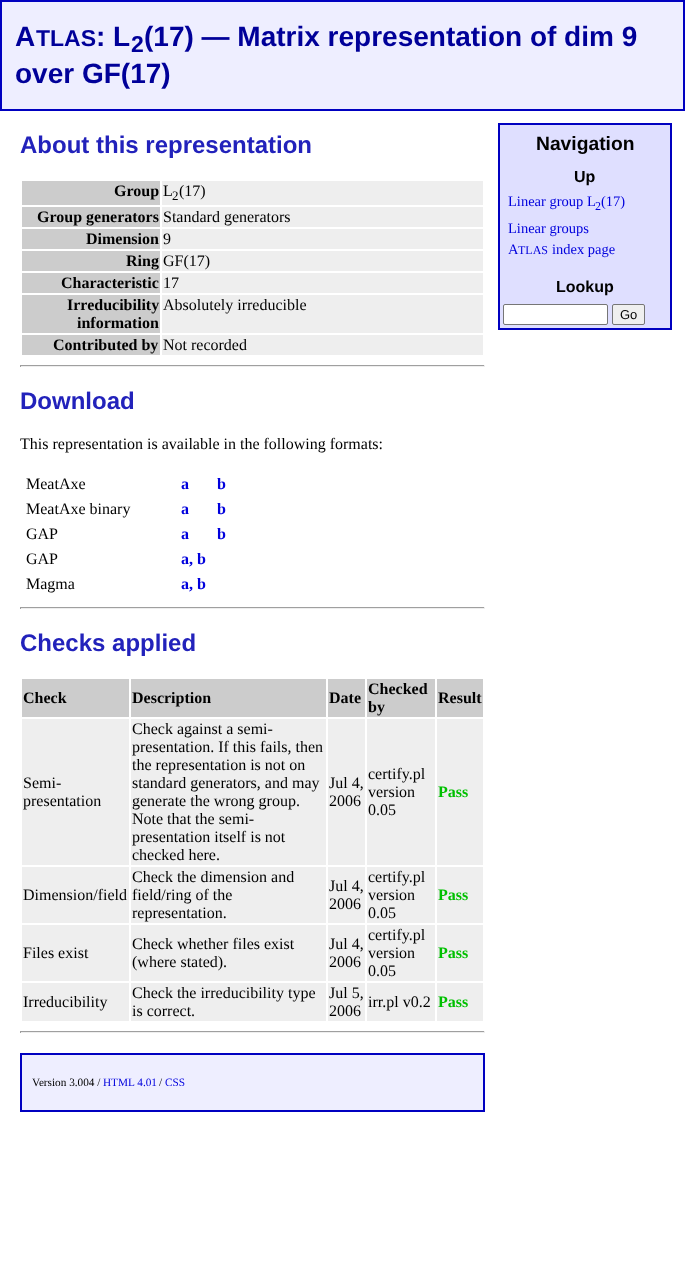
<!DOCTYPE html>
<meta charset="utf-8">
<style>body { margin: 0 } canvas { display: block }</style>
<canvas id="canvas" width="685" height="1283"></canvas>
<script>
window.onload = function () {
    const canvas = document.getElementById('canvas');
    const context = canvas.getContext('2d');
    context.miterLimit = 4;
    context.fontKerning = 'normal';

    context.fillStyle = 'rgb(255, 255, 255)';
    context.fillRect(0, 0, 685, 1283);
    context.fillStyle = 'rgb(238, 238, 255)';
    context.beginPath();
    context.rect(1, 1, 683, 109);
    context.fill();
    context.strokeStyle = 'rgb(0, 0, 192)';
    context.lineWidth = 2;
    context.stroke();
    context.fillStyle = 'rgb(204, 204, 204)';
    context.fillRect(22, 181, 138, 24);
    context.fillStyle = 'rgb(238, 238, 238)';
    context.fillRect(162, 181, 321, 24);
    context.fillStyle = 'rgb(204, 204, 204)';
    context.fillRect(22, 207, 138, 20);
    context.fillStyle = 'rgb(238, 238, 238)';
    context.fillRect(162, 207, 321, 20);
    context.fillStyle = 'rgb(204, 204, 204)';
    context.fillRect(22, 229, 138, 20);
    context.fillStyle = 'rgb(238, 238, 238)';
    context.fillRect(162, 229, 321, 20);
    context.fillStyle = 'rgb(204, 204, 204)';
    context.fillRect(22, 251, 138, 20);
    context.fillStyle = 'rgb(238, 238, 238)';
    context.fillRect(162, 251, 321, 20);
    context.fillStyle = 'rgb(204, 204, 204)';
    context.fillRect(22, 273, 138, 20);
    context.fillStyle = 'rgb(238, 238, 238)';
    context.fillRect(162, 273, 321, 20);
    context.fillStyle = 'rgb(204, 204, 204)';
    context.fillRect(22, 295, 138, 38);
    context.fillStyle = 'rgb(238, 238, 238)';
    context.fillRect(162, 295, 321, 38);
    context.fillStyle = 'rgb(204, 204, 204)';
    context.fillRect(22, 335, 138, 20);
    context.fillStyle = 'rgb(238, 238, 238)';
    context.fillRect(162, 335, 321, 20);
    context.fillStyle = 'rgb(159, 159, 159)';
    context.fillRect(20, 365, 465, 1);
    context.fillStyle = 'rgb(238, 238, 238)';
    context.fillRect(484, 365, 1, 2);
    context.fillRect(20, 366, 465, 1);
    context.fillStyle = 'rgb(159, 159, 159)';
    context.fillRect(20, 365, 1, 2);
    context.fillRect(20, 607, 465, 1);
    context.fillStyle = 'rgb(238, 238, 238)';
    context.fillRect(484, 607, 1, 2);
    context.fillRect(20, 608, 465, 1);
    context.fillStyle = 'rgb(159, 159, 159)';
    context.fillRect(20, 607, 1, 2);
    context.fillStyle = 'rgb(204, 204, 204)';
    context.fillRect(22, 679, 107, 38);
    context.fillRect(131, 679, 195, 38);
    context.fillRect(328, 679, 37, 38);
    context.fillRect(367, 679, 68, 38);
    context.fillRect(437, 679, 46, 38);
    context.fillStyle = 'rgb(238, 238, 238)';
    context.fillRect(22, 719, 107, 146);
    context.fillRect(131, 719, 195, 146);
    context.fillRect(328, 719, 37, 146);
    context.fillRect(367, 719, 68, 146);
    context.fillRect(437, 719, 46, 146);
    context.fillRect(22, 867, 107, 56);
    context.fillRect(131, 867, 195, 56);
    context.fillRect(328, 867, 37, 56);
    context.fillRect(367, 867, 68, 56);
    context.fillRect(437, 867, 46, 56);
    context.fillRect(22, 925, 107, 56);
    context.fillRect(131, 925, 195, 56);
    context.fillRect(328, 925, 37, 56);
    context.fillRect(367, 925, 68, 56);
    context.fillRect(437, 925, 46, 56);
    context.fillRect(22, 983, 107, 38);
    context.fillRect(131, 983, 195, 38);
    context.fillRect(328, 983, 37, 38);
    context.fillRect(367, 983, 68, 38);
    context.fillRect(437, 983, 46, 38);
    context.fillStyle = 'rgb(159, 159, 159)';
    context.fillRect(20, 1031, 465, 1);
    context.fillStyle = 'rgb(238, 238, 238)';
    context.fillRect(484, 1031, 1, 2);
    context.fillRect(20, 1032, 465, 1);
    context.fillStyle = 'rgb(159, 159, 159)';
    context.fillRect(20, 1031, 1, 2);
    context.fillStyle = 'rgb(223, 223, 255)';
    context.beginPath();
    context.rect(499, 124, 172, 205);
    context.fill();
    context.stroke();
    context.fillStyle = 'rgb(255, 255, 255)';
    context.beginPath();
    context.roundRect(503.5, 304.5, 104, 20, 1.5);
    context.fill();
    context.strokeStyle = 'rgb(118, 118, 118)';
    context.lineWidth = 1;
    context.stroke();
    context.fillStyle = 'rgb(239, 239, 239)';
    context.beginPath();
    context.roundRect(612.5, 304.5, 32, 20, 1.5);
    context.fill();
    context.stroke();
    context.fillStyle = 'rgb(238, 238, 255)';
    context.beginPath();
    context.rect(21, 1054, 463, 57);
    context.fill();
    context.strokeStyle = 'rgb(0, 0, 192)';
    context.lineWidth = 2;
    context.stroke();
    context.font = 'bold 28px Liberation Sans';
    context.fillStyle = 'rgb(0, 0, 153)';
    context.fillText('A', 15, 46);
    context.font = 'bold 23px Liberation Sans';
    context.fillText('TLAS', 36, 46);
    context.font = 'bold 28px Liberation Sans';
    context.fillText(': L', 96, 46);
    context.font = 'bold 23px Liberation Sans';
    context.fillText('2', 131, 52);
    context.font = 'bold 28px Liberation Sans';
    context.fillText('(17) — Matrix representation of dim 9', 144, 46);
    context.fillText('over GF(17)', 15, 83);
    context.font = 'bold 24px Liberation Sans';
    context.fillStyle = 'rgb(34, 34, 187)';
    context.fillText('About this representation', 20, 153);
    context.font = 'bold 16px Liberation Serif';
    context.fillStyle = 'rgb(0, 0, 0)';
    context.fillText('Group', 114, 196);
    context.font = '16px Liberation Serif';
    context.fillText('L', 163, 196);
    context.font = '13px Liberation Serif';
    context.fillText('2', 172, 200);
    context.font = '16px Liberation Serif';
    context.fillText('(17)', 179, 196);
    context.font = 'bold 16px Liberation Serif';
    context.fillText('Group generators', 37, 222);
    context.font = '16px Liberation Serif';
    context.fillText('Standard generators', 163, 222);
    context.font = 'bold 16px Liberation Serif';
    context.fillText('Dimension', 86, 244);
    context.font = '16px Liberation Serif';
    context.fillText('9', 163, 244);
    context.font = 'bold 16px Liberation Serif';
    context.fillText('Ring', 126, 266);
    context.font = '16px Liberation Serif';
    context.fillText('GF(17)', 163, 266);
    context.font = 'bold 16px Liberation Serif';
    context.fillText('Characteristic', 61, 288);
    context.font = '16px Liberation Serif';
    context.fillText('17', 163, 288);
    context.font = 'bold 16px Liberation Serif';
    context.fillText('Irreducibility', 67, 310);
    context.fillText('information', 77, 328);
    context.font = '16px Liberation Serif';
    context.fillText('Absolutely irreducible', 163, 310);
    context.font = 'bold 16px Liberation Serif';
    context.fillText('Contributed by', 53, 350);
    context.font = '16px Liberation Serif';
    context.fillText('Not recorded', 163, 350);
    context.font = 'bold 24px Liberation Sans';
    context.fillStyle = 'rgb(34, 34, 187)';
    context.fillText('Download', 20, 409);
    context.font = '16px Liberation Serif';
    context.fillStyle = 'rgb(0, 0, 0)';
    context.fillText('This representation is available in the following formats:', 20, 449);
    context.fillText('MeatAxe', 26, 489);
    context.font = 'bold 16px Liberation Serif';
    context.fillStyle = 'rgb(0, 0, 221)';
    context.fillText('a', 181, 489);
    context.fillText('b', 217, 489);
    context.font = '16px Liberation Serif';
    context.fillStyle = 'rgb(0, 0, 0)';
    context.fillText('MeatAxe binary', 26, 514);
    context.font = 'bold 16px Liberation Serif';
    context.fillStyle = 'rgb(0, 0, 221)';
    context.fillText('a', 181, 514);
    context.fillText('b', 217, 514);
    context.font = '16px Liberation Serif';
    context.fillStyle = 'rgb(0, 0, 0)';
    context.fillText('GAP', 26, 539);
    context.font = 'bold 16px Liberation Serif';
    context.fillStyle = 'rgb(0, 0, 221)';
    context.fillText('a', 181, 539);
    context.fillText('b', 217, 539);
    context.font = '16px Liberation Serif';
    context.fillStyle = 'rgb(0, 0, 0)';
    context.fillText('GAP', 26, 564);
    context.font = 'bold 16px Liberation Serif';
    context.fillStyle = 'rgb(0, 0, 221)';
    context.fillText('a, b', 181, 564);
    context.font = '16px Liberation Serif';
    context.fillStyle = 'rgb(0, 0, 0)';
    context.fillText('Magma', 26, 589);
    context.font = 'bold 16px Liberation Serif';
    context.fillStyle = 'rgb(0, 0, 221)';
    context.fillText('a, b', 181, 589);
    context.font = 'bold 24px Liberation Sans';
    context.fillStyle = 'rgb(34, 34, 187)';
    context.fillText('Checks applied', 20, 651);
    context.font = 'bold 16px Liberation Serif';
    context.fillStyle = 'rgb(0, 0, 0)';
    context.fillText('Check', 23, 703);
    context.fillText('Description', 132, 703);
    context.fillText('Date', 329, 703);
    context.fillText('Checked', 368, 694);
    context.fillText('by', 368, 712);
    context.fillText('Result', 438, 703);
    context.font = '16px Liberation Serif';
    context.fillText('Semi-', 23, 788);
    context.fillText('presentation', 23, 806);
    context.fillText('Check against a semi-', 132, 734);
    context.fillText('presentation. If this fails, then', 132, 752);
    context.fillText('the representation is not on', 132, 770);
    context.fillText('standard generators, and may', 132, 788);
    context.fillText('generate the wrong group.', 132, 806);
    context.fillText('Note that the semi-', 132, 824);
    context.fillText('presentation itself is not', 132, 842);
    context.fillText('checked here.', 132, 860);
    context.fillText('Jul 4,', 329, 788);
    context.fillText('2006', 329, 806);
    context.fillText('certify.pl', 368, 779);
    context.fillText('version', 368, 797);
    context.fillText('0.05', 368, 815);
    context.font = 'bold 16px Liberation Serif';
    context.fillStyle = 'rgb(0, 192, 0)';
    context.fillText('Pass', 438, 797);
    context.font = '16px Liberation Serif';
    context.fillStyle = 'rgb(0, 0, 0)';
    context.fillText('Dimension/field', 23, 900);
    context.fillText('Check the dimension and', 132, 882);
    context.fillText('field/ring of the', 132, 900);
    context.fillText('representation.', 132, 918);
    context.fillText('Jul 4,', 329, 891);
    context.fillText('2006', 329, 909);
    context.fillText('certify.pl', 368, 882);
    context.fillText('version', 368, 900);
    context.fillText('0.05', 368, 918);
    context.font = 'bold 16px Liberation Serif';
    context.fillStyle = 'rgb(0, 192, 0)';
    context.fillText('Pass', 438, 900);
    context.font = '16px Liberation Serif';
    context.fillStyle = 'rgb(0, 0, 0)';
    context.fillText('Files exist', 23, 958);
    context.fillText('Check whether files exist', 132, 949);
    context.fillText('(where stated).', 132, 967);
    context.fillText('Jul 4,', 329, 949);
    context.fillText('2006', 329, 967);
    context.fillText('certify.pl', 368, 940);
    context.fillText('version', 368, 958);
    context.fillText('0.05', 368, 976);
    context.font = 'bold 16px Liberation Serif';
    context.fillStyle = 'rgb(0, 192, 0)';
    context.fillText('Pass', 438, 958);
    context.font = '16px Liberation Serif';
    context.fillStyle = 'rgb(0, 0, 0)';
    context.fillText('Irreducibility', 23, 1007);
    context.fillText('Check the irreducibility type', 132, 998);
    context.fillText('is correct.', 132, 1016);
    context.fillText('Jul 5,', 329, 998);
    context.fillText('2006', 329, 1016);
    context.fillText('irr.pl v0.2', 368, 1007);
    context.font = 'bold 16px Liberation Serif';
    context.fillStyle = 'rgb(0, 192, 0)';
    context.fillText('Pass', 438, 1007);
    context.font = 'bold 19.25px Liberation Sans';
    context.fillStyle = 'rgb(0, 0, 0)';
    context.fillText('Navigation', 536, 150);
    context.font = 'bold 16px Liberation Sans';
    context.fillText('Up', 574, 182);
    context.font = '14.5px Liberation Serif';
    context.fillStyle = 'rgb(0, 0, 221)';
    context.fillText('Linear group L', 508, 206);
    context.font = '12px Liberation Serif';
    context.fillText('2', 595, 210);
    context.font = '14.5px Liberation Serif';
    context.fillText('(17)', 601, 206);
    context.fillText('Linear groups', 508, 233);
    context.fillText('A', 508, 254);
    context.font = '12px Liberation Serif';
    context.fillText('TLAS', 518, 254);
    context.font = '14.5px Liberation Serif';
    context.fillText('index page', 552, 254);
    context.font = 'bold 16px Liberation Sans';
    context.fillStyle = 'rgb(0, 0, 0)';
    context.fillText('Lookup', 556, 292);
    context.font = '13px Liberation Sans';
    context.fillText('Go', 620, 319);
    context.font = '11.25px Liberation Serif';
    context.fillText('Version 3.004 /', 32, 1086);
    context.fillStyle = 'rgb(0, 0, 221)';
    context.fillText('HTML 4.01', 103, 1086);
    context.fillStyle = 'rgb(0, 0, 0)';
    context.fillText('/', 159, 1086);
    context.fillStyle = 'rgb(0, 0, 221)';
    context.fillText('CSS', 165, 1086);
};
</script>
